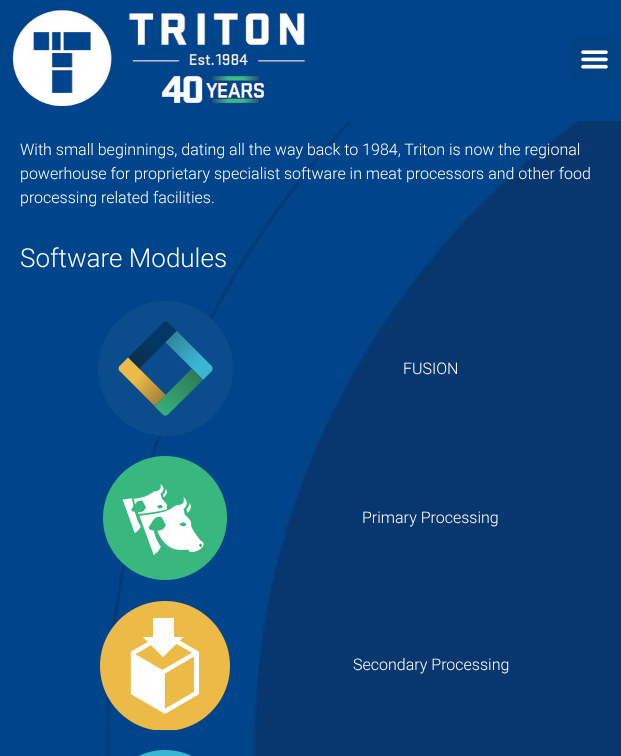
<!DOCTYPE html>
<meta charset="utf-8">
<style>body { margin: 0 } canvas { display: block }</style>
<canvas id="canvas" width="621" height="756"></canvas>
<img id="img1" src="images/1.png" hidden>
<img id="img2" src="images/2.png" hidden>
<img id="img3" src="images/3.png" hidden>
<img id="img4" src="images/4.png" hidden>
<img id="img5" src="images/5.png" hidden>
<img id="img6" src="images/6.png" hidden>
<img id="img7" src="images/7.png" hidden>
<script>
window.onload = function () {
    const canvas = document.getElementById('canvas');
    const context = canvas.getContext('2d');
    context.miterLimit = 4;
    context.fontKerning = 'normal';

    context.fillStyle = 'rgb(255, 255, 255)';
    context.fillRect(0, 0, 621, 756);
    context.fillStyle = 'rgb(0, 69, 139)';
    context.fillRect(0, 0, 621, 121);
    context.drawImage(document.getElementById('img1'), 10, 10, 299, 97);
    context.fillStyle = 'rgb(0, 66, 132)';
    context.beginPath();
    context.roundRect(572, 36, 44, 44, 3);
    context.fill();
    context.drawImage(document.getElementById('img2'), 581, 50, 27, 19);
    context.drawImage(document.getElementById('img3'), 0, 121, 621, 635);
    context.drawImage(document.getElementById('img4'), 98, 301, 135, 135);
    context.drawImage(document.getElementById('img5'), 103, 456, 124, 124);
    context.drawImage(document.getElementById('img6'), 100, 601, 130, 129);
    context.drawImage(document.getElementById('img7'), 138, 750, 54, 6);
    context.font = '300 16px Roboto';
    context.fillStyle = 'rgb(255, 255, 255)';
    context.fillText('With small beginnings, dating all the way back to 1984, Triton is now the regional', 20, 155);
    context.fillText('powerhouse for proprietary specialist software in meat processors and other food', 20, 179);
    context.fillText('processing related facilities.', 20, 203);
    context.font = '300 26px Roboto';
    context.fillText('Software Modules', 20, 267);
    context.font = '300 16px Roboto';
    context.fillText('FUSION', 403, 374);
    context.fillText('Primary Processing', 362, 523);
    context.fillText('Secondary Processing', 353, 670);
};
</script>
